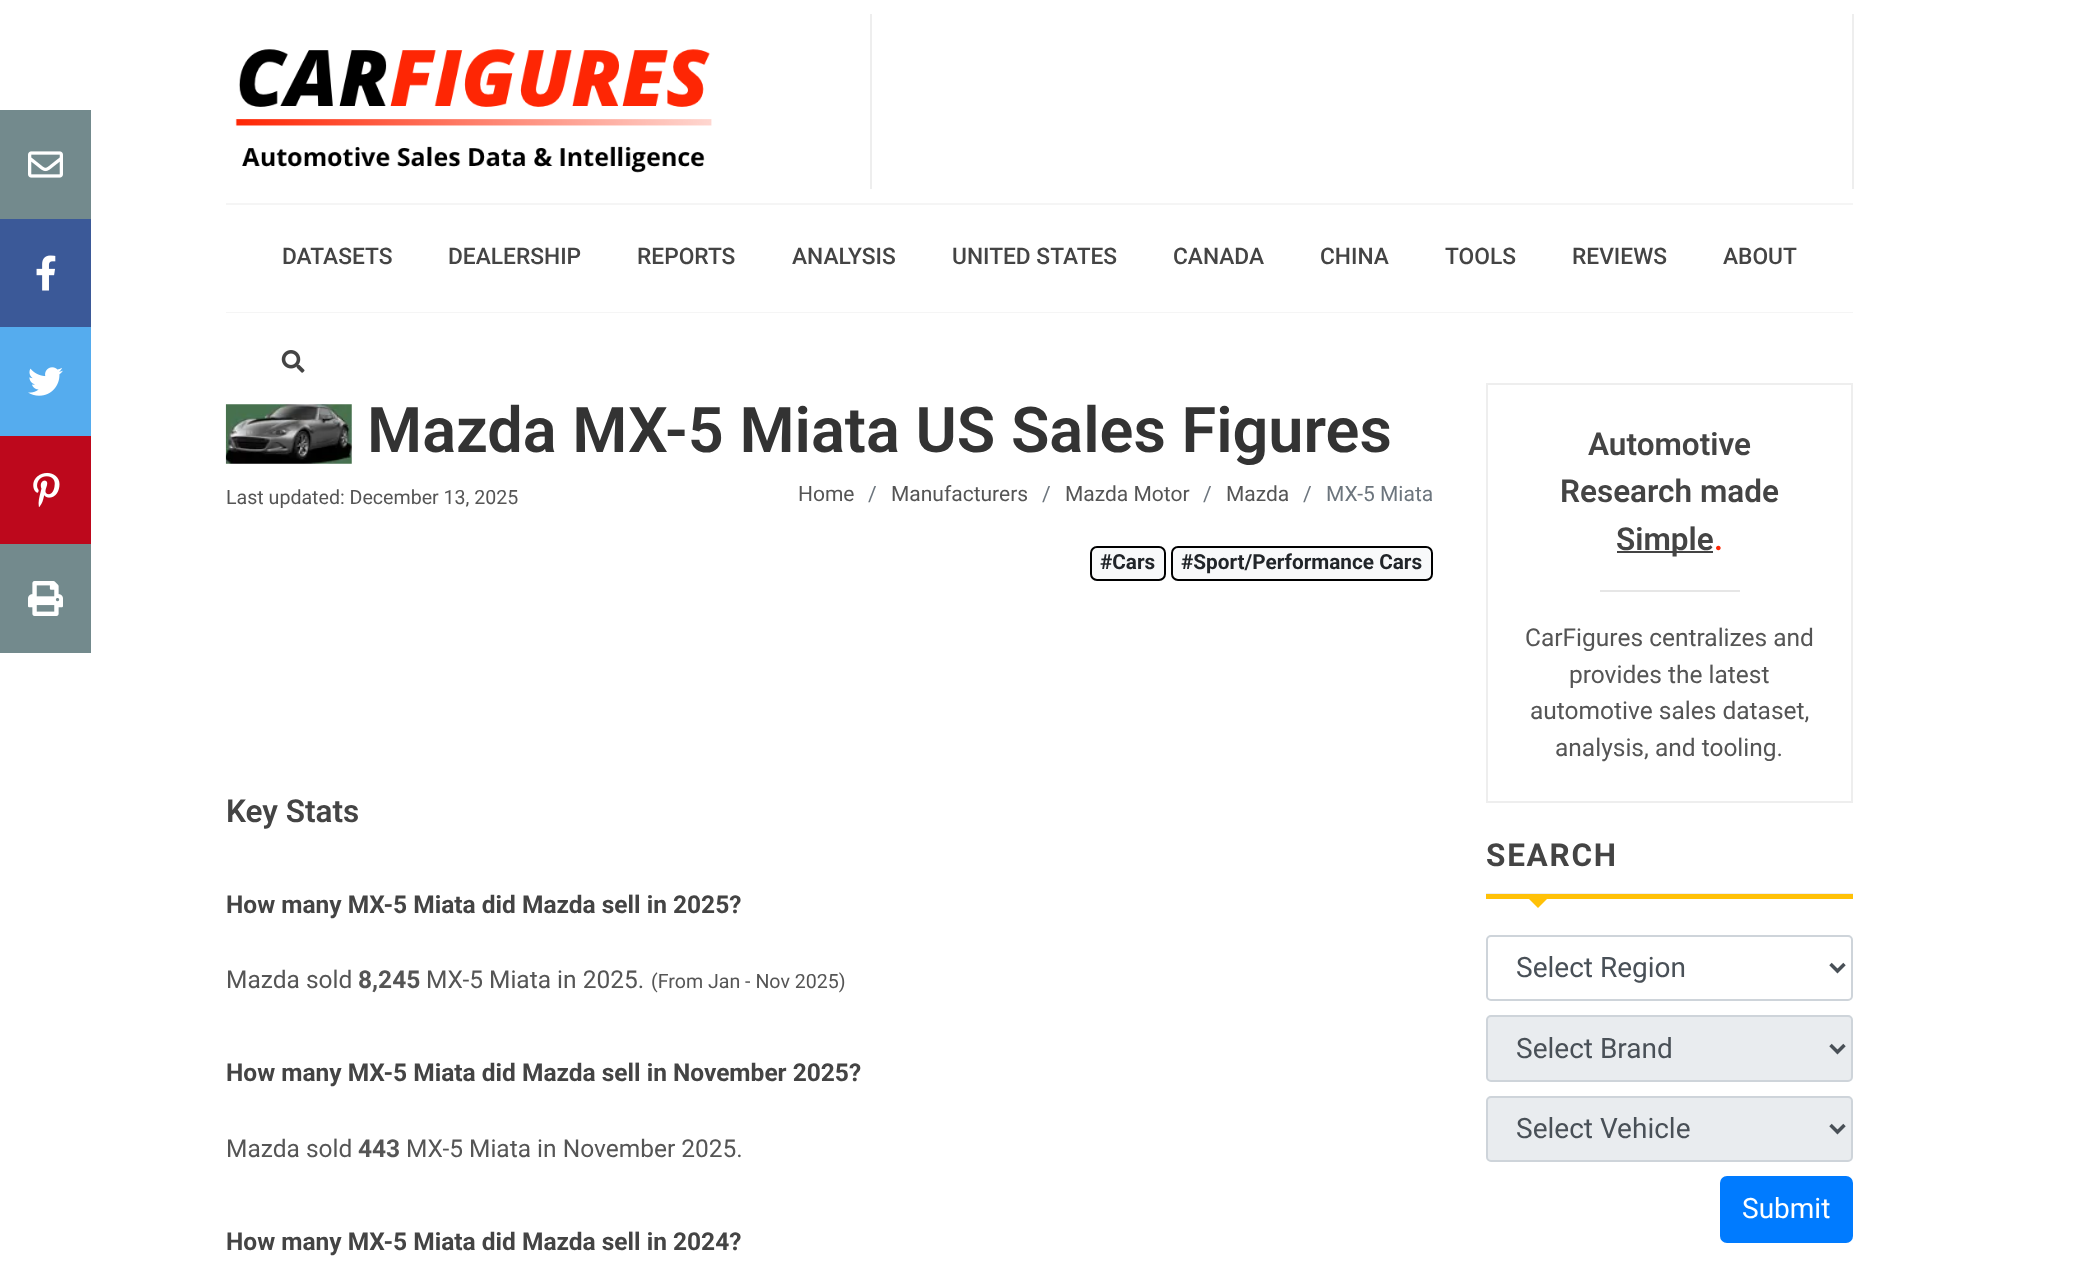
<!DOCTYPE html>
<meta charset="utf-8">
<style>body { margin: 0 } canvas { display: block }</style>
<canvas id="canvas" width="2079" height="1274"></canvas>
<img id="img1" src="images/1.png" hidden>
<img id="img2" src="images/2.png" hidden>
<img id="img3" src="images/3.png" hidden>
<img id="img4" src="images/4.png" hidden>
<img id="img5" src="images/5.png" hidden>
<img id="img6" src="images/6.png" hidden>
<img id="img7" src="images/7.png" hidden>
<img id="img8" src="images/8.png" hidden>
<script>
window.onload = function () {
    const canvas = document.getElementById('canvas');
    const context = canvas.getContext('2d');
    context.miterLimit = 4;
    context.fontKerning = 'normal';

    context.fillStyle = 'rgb(255, 255, 255)';
    context.fillRect(0, 0, 2079, 1274);
    context.fillStyle = 'rgb(115, 138, 141)';
    context.fillRect(0, 110, 91, 109);
    context.drawImage(document.getElementById('img1'), 28, 151, 35, 27);
    context.fillStyle = 'rgb(59, 89, 152)';
    context.fillRect(0, 219, 91, 108);
    context.drawImage(document.getElementById('img2'), 36, 255, 20, 36);
    context.fillStyle = 'rgb(85, 172, 238)';
    context.fillRect(0, 327, 91, 109);
    context.drawImage(document.getElementById('img3'), 28, 367, 35, 29);
    context.fillStyle = 'rgb(189, 8, 28)';
    context.fillRect(0, 436, 91, 108);
    context.drawImage(document.getElementById('img4'), 33, 472, 27, 35);
    context.fillStyle = 'rgb(115, 138, 141)';
    context.fillRect(0, 544, 91, 109);
    context.drawImage(document.getElementById('img5'), 28, 581, 35, 35);
    context.fillStyle = 'rgb(245, 245, 245)';
    context.fillRect(226, 312, 1627, 1);
    context.drawImage(document.getElementById('img6'), 235, 49, 477, 124);
    context.fillStyle = 'rgb(238, 238, 238)';
    context.fillRect(1852, 14, 2, 175);
    context.fillRect(870, 14, 2, 175);
    context.fillStyle = 'rgb(245, 245, 245)';
    context.fillRect(226, 203, 1627, 2);
    context.drawImage(document.getElementById('img7'), 281, 350, 24, 23);
    context.drawImage(document.getElementById('img8'), 225, 404, 127, 60);
    context.fillStyle = 'rgb(248, 249, 250)';
    context.beginPath();
    context.roundRect(1091, 547, 74, 33, 6);
    context.fill();
    context.strokeStyle = 'rgb(0, 0, 0)';
    context.lineWidth = 2;
    context.stroke();
    context.beginPath();
    context.roundRect(1172, 547, 260, 33, 6);
    context.fill();
    context.stroke();
    context.strokeStyle = 'rgb(238, 238, 238)';
    context.strokeRect(1487, 384, 365, 418);
    context.fillStyle = 'rgb(68, 68, 68)';
    context.fillRect(1617, 551, 96, 2);
    context.fillStyle = 'rgb(230, 230, 230)';
    context.fillRect(1600, 590, 140, 2);
    context.fillStyle = 'rgb(238, 238, 238)';
    context.fillRect(1486, 893, 367, 1);
    context.fillStyle = 'rgb(255, 193, 7)';
    context.fillRect(1486, 894, 367, 5);
    context.beginPath();
    context.moveTo(1524, 894);
    context.lineTo(1552, 894);
    context.lineTo(1538, 908);
    context.closePath();
    context.fill();
    context.beginPath();
    context.roundRect(1487, 936, 365, 64, 4);
    context.strokeStyle = 'rgb(206, 212, 218)';
    context.stroke();
    context.beginPath();
    context.moveTo(1830.5, 964);
    context.lineTo(1837.5, 971);
    context.lineTo(1844.5, 964);
    context.strokeStyle = 'rgb(73, 80, 87)';
    context.lineWidth = 3.5;
    context.stroke();
    context.fillStyle = 'rgb(233, 236, 239)';
    context.beginPath();
    context.roundRect(1487, 1016, 365, 65, 4);
    context.fill();
    context.strokeStyle = 'rgb(206, 212, 218)';
    context.lineWidth = 2;
    context.stroke();
    context.beginPath();
    context.moveTo(1830.5, 1045);
    context.lineTo(1837.5, 1052);
    context.lineTo(1844.5, 1045);
    context.strokeStyle = 'rgb(73, 80, 87)';
    context.lineWidth = 3.5;
    context.stroke();
    context.beginPath();
    context.roundRect(1487, 1097, 365, 64, 4);
    context.fill();
    context.strokeStyle = 'rgb(206, 212, 218)';
    context.lineWidth = 2;
    context.stroke();
    context.beginPath();
    context.moveTo(1830.5, 1125);
    context.lineTo(1837.5, 1132);
    context.lineTo(1844.5, 1125);
    context.strokeStyle = 'rgb(73, 80, 87)';
    context.lineWidth = 3.5;
    context.stroke();
    context.fillStyle = 'rgb(0, 123, 255)';
    context.beginPath();
    context.roundRect(1721, 1177, 131, 65, 6);
    context.fill();
    context.strokeStyle = 'rgb(0, 123, 255)';
    context.lineWidth = 2;
    context.stroke();
    context.font = '500 22.75px Roboto';
    context.fillStyle = 'rgb(68, 68, 68)';
    context.fillText('DATASETS', 282, 264);
    context.fillText('DEALERSHIP', 448, 264);
    context.fillText('REPORTS', 637, 264);
    context.fillText('ANALYSIS', 792, 264);
    context.fillText('UNITED STATES', 952, 264);
    context.fillText('CANADA', 1173, 264);
    context.fillText('CHINA', 1320, 264);
    context.fillText('TOOLS', 1445, 264);
    context.fillText('REVIEWS', 1572, 264);
    context.fillText('ABOUT', 1723, 264);
    context.font = '600 63px Roboto';
    context.fillStyle = 'rgb(51, 51, 51)';
    context.fillText('Mazda MX-5 Miata US Sales Figures', 367, 452);
    context.font = '19.6px Roboto';
    context.fillStyle = 'rgb(85, 85, 85)';
    context.fillText('Last updated: December 13, 2025', 226, 504);
    context.font = '21px Roboto';
    context.fillText('Home', 798, 501);
    context.fillStyle = 'rgb(108, 117, 125)';
    context.fillText('/', 868, 501);
    context.fillStyle = 'rgb(85, 85, 85)';
    context.fillText('Manufacturers', 891, 501);
    context.fillStyle = 'rgb(108, 117, 125)';
    context.fillText('/', 1042, 501);
    context.fillStyle = 'rgb(85, 85, 85)';
    context.fillText('Mazda Motor', 1065, 501);
    context.fillStyle = 'rgb(108, 117, 125)';
    context.fillText('/', 1203, 501);
    context.fillStyle = 'rgb(85, 85, 85)';
    context.fillText('Mazda', 1226, 501);
    context.fillStyle = 'rgb(108, 117, 125)';
    context.fillText('/', 1303, 501);
    context.fillText('MX-5 Miata', 1326, 501);
    context.font = 'bold 20.75px Roboto';
    context.fillStyle = 'rgb(33, 37, 41)';
    context.fillText('#Cars', 1100, 569);
    context.fillText('#Sport/Performance Cars', 1181, 569);
    context.font = '600 31.5px Roboto';
    context.fillStyle = 'rgb(68, 68, 68)';
    context.fillText('Key Stats', 226, 822);
    context.font = 'bold 24.5px Roboto';
    context.fillText('How many MX-5 Miata did Mazda sell in 2025?', 226, 913);
    context.font = '24.5px Roboto';
    context.fillStyle = 'rgb(85, 85, 85)';
    context.fillText('Mazda sold', 226, 988);
    context.font = 'bold 24.5px Roboto';
    context.fillText('8,245', 358, 988);
    context.font = '24.5px Roboto';
    context.fillText('MX-5 Miata in 2025.', 426, 988);
    context.font = '19.6px Roboto';
    context.fillText('(From Jan - Nov 2025)', 651, 988);
    context.font = 'bold 24.5px Roboto';
    context.fillStyle = 'rgb(68, 68, 68)';
    context.fillText('How many MX-5 Miata did Mazda sell in November 2025?', 226, 1081);
    context.font = '24.5px Roboto';
    context.fillStyle = 'rgb(85, 85, 85)';
    context.fillText('Mazda sold', 226, 1157);
    context.font = 'bold 24.5px Roboto';
    context.fillText('443', 358, 1157);
    context.font = '24.5px Roboto';
    context.fillText('MX-5 Miata in November 2025.', 406, 1157);
    context.font = 'bold 24.5px Roboto';
    context.fillStyle = 'rgb(68, 68, 68)';
    context.fillText('How many MX-5 Miata did Mazda sell in 2024?', 226, 1250);
    context.font = '600 31.5px Roboto';
    context.fillText('Automotive', 1588, 455);
    context.fillText('Research made', 1560, 502);
    context.fillText('Simple', 1616, 550);
    context.fillStyle = 'rgb(254, 38, 4)';
    context.fillText('.', 1714, 550);
    context.font = '24.5px Roboto';
    context.fillStyle = 'rgb(85, 85, 85)';
    context.fillText('CarFigures centralizes and', 1525, 646);
    context.fillText('provides the latest', 1569, 683);
    context.fillText('automotive sales dataset,', 1530, 719);
    context.fillText('analysis, and tooling.', 1555, 756);
    context.letterSpacing = '1.75px';
    context.font = 'bold 31.5px Roboto';
    context.fillStyle = 'rgb(68, 68, 68)';
    context.fillText('SEARCH', 1486, 866);
    context.letterSpacing = '0px';
    context.font = '28px Roboto';
    context.fillStyle = 'rgb(73, 80, 87)';
    context.fillText('Select Region', 1516, 977);
    context.fillText('Select Brand', 1516, 1058);
    context.fillText('Select Vehicle', 1516, 1138);
    context.fillStyle = 'rgb(255, 255, 255)';
    context.fillText('Submit', 1742, 1218);
};
</script>
